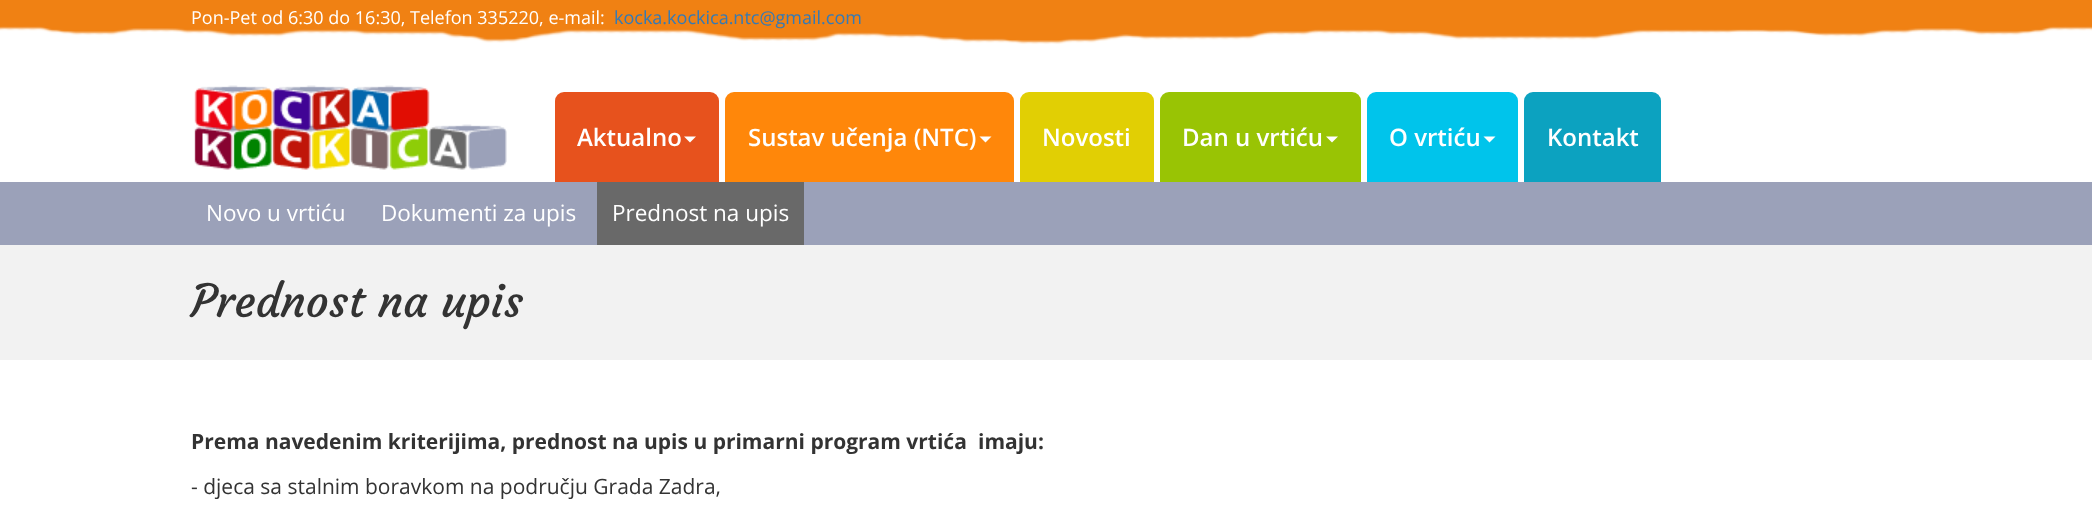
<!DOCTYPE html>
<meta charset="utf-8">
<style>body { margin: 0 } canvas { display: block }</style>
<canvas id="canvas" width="2092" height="512"></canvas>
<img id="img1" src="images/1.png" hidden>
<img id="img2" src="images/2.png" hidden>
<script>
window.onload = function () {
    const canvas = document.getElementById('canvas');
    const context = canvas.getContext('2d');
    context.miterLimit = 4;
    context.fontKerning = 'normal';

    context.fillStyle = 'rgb(255, 255, 255)';
    context.fillRect(0, 0, 2092, 512);
    context.fillStyle = 'rgb(240, 129, 19)';
    context.fillRect(0, 0, 2092, 45);
    context.drawImage(document.getElementById('img1'), 0, 26, 2092, 25);
    context.drawImage(document.getElementById('img2'), 194, 85, 313, 85);
    context.fillStyle = 'rgb(231, 82, 29)';
    context.beginPath();
    context.roundRect(555, 92, 164, 90, [9, 9, 0, 0]);
    context.fill();
    context.fillStyle = 'rgb(255, 255, 255)';
    context.beginPath();
    context.moveTo(684, 136.5);
    context.lineTo(696, 136.5);
    context.lineTo(690, 142.5);
    context.closePath();
    context.fill();
    context.fillStyle = 'rgb(255, 135, 10)';
    context.beginPath();
    context.roundRect(725, 92, 289, 90, [9, 9, 0, 0]);
    context.fill();
    context.fillStyle = 'rgb(255, 255, 255)';
    context.beginPath();
    context.moveTo(979.5, 136.5);
    context.lineTo(991.5, 136.5);
    context.lineTo(985.5, 142.5);
    context.closePath();
    context.fill();
    context.fillStyle = 'rgb(225, 207, 4)';
    context.beginPath();
    context.roundRect(1020, 92, 134, 90, [9, 9, 0, 0]);
    context.fill();
    context.fillStyle = 'rgb(153, 196, 4)';
    context.beginPath();
    context.roundRect(1160, 92, 201, 90, [9, 9, 0, 0]);
    context.fill();
    context.fillStyle = 'rgb(255, 255, 255)';
    context.beginPath();
    context.moveTo(1326, 136.5);
    context.lineTo(1338, 136.5);
    context.lineTo(1332, 142.5);
    context.closePath();
    context.fill();
    context.fillStyle = 'rgb(0, 196, 235)';
    context.beginPath();
    context.roundRect(1367, 92, 151, 90, [9, 9, 0, 0]);
    context.fill();
    context.fillStyle = 'rgb(255, 255, 255)';
    context.beginPath();
    context.moveTo(1483.5, 136.5);
    context.lineTo(1495.5, 136.5);
    context.lineTo(1489.5, 142.5);
    context.closePath();
    context.fill();
    context.fillStyle = 'rgb(12, 162, 192)';
    context.beginPath();
    context.roundRect(1524, 92, 137, 90, [9, 9, 0, 0]);
    context.fill();
    context.fillStyle = 'rgb(155, 161, 185)';
    context.fillRect(0, 182, 2092, 63);
    context.fillStyle = 'rgb(105, 105, 105)';
    context.fillRect(597, 182, 207, 63);
    context.fillStyle = 'rgb(242, 242, 242)';
    context.fillRect(0, 245, 2092, 115);
    context.font = '18px Open Sans';
    context.fillStyle = 'rgb(255, 255, 255)';
    context.fillText('Pon-Pet od 6:30 do 16:30, Telefon 335220, e-mail:', 191, 24);
    context.fillStyle = 'rgb(51, 122, 183)';
    context.fillText('kocka.kockica.ntc@gmail.com', 614, 24);
    context.font = '600 24px Open Sans';
    context.fillStyle = 'rgb(255, 255, 255)';
    context.fillText('Aktualno', 577, 146);
    context.fillText('Sustav učenja (NTC)', 748, 146);
    context.fillText('Novosti', 1042, 146);
    context.fillText('Dan u vrtiću', 1182, 146);
    context.fillText('O vrtiću', 1389, 146);
    context.fillText('Kontakt', 1547, 146);
    context.font = '22.5px Open Sans';
    context.fillText('Novo u vrtiću', 206, 221);
    context.fillText('Dokumenti za upis', 381, 221);
    context.fillText('Prednost na upis', 612, 221);
    context.font = '45px Courgette';
    context.fillStyle = 'rgb(51, 51, 51)';
    context.fillText('Prednost na upis', 191, 317);
    context.font = 'bold 21px Open Sans';
    context.fillText('Prema navedenim kriterijima, prednost na upis u primarni program vrtića', 191, 449);
    context.fillText('imaju:', 978, 449);
    context.font = '21px Open Sans';
    context.fillText('- djeca sa stalnim boravkom na području Grada Zadra,', 191, 494);
};
</script>
